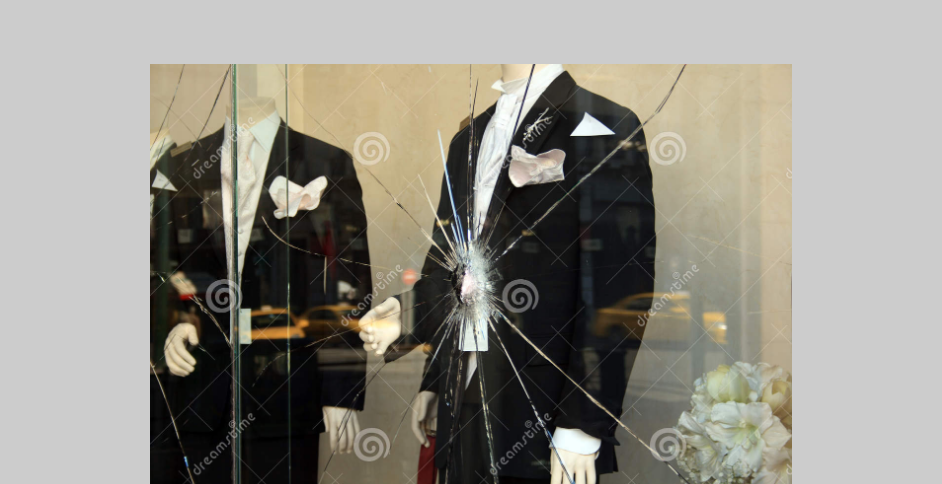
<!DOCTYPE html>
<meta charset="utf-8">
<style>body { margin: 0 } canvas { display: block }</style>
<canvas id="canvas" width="942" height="484"></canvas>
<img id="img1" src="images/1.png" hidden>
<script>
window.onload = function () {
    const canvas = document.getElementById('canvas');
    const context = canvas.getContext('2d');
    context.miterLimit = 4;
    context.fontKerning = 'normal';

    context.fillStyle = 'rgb(204, 204, 204)';
    context.fillRect(0, 0, 942, 484);
    context.drawImage(document.getElementById('img1'), 150, 64, 642, 420);
};
</script>
